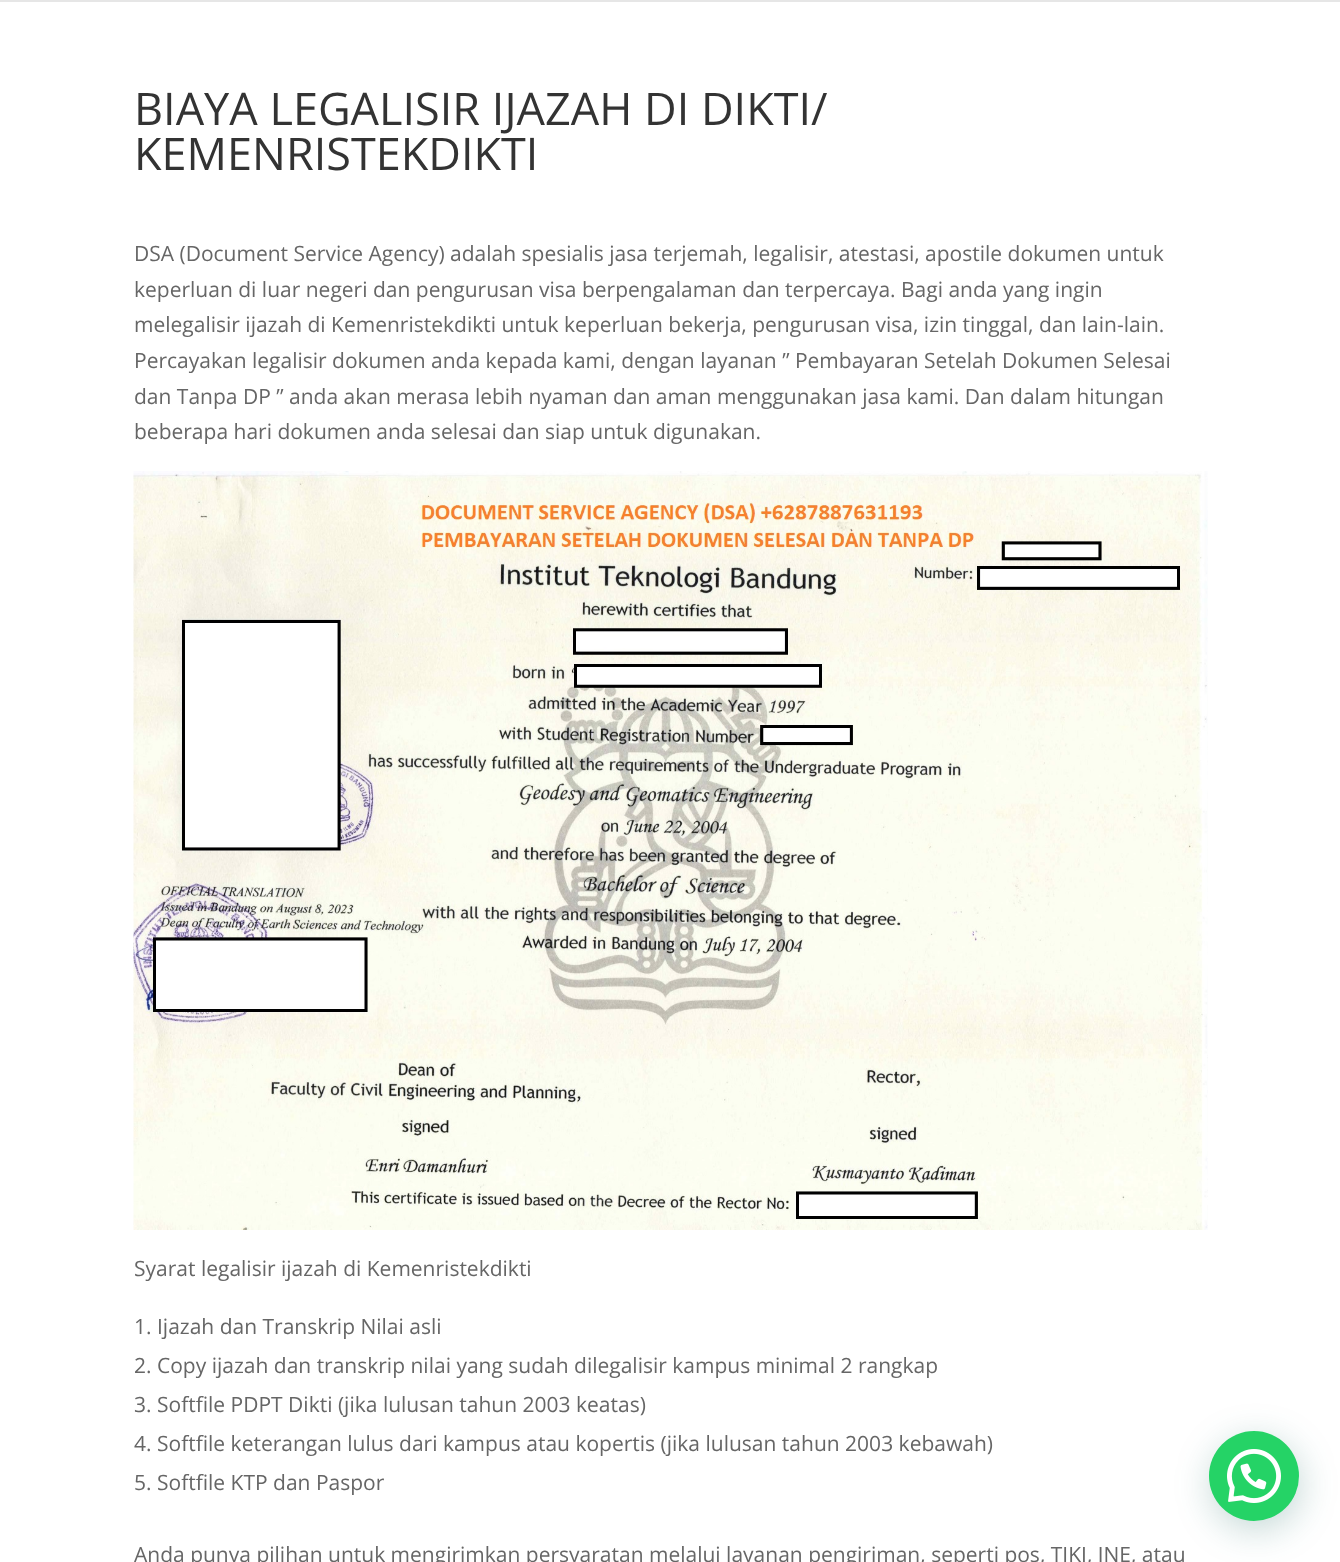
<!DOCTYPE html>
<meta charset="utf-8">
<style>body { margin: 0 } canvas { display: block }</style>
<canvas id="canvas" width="1340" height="1562"></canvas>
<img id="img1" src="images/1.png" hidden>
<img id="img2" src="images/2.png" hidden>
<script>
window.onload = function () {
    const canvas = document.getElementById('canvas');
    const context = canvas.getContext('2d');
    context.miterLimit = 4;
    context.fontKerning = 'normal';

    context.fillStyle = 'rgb(255, 255, 255)';
    context.fillRect(0, 0, 1340, 1562);
    context.fillStyle = 'rgb(230, 230, 230)';
    context.fillRect(0, 0, 1340, 2);
    context.drawImage(document.getElementById('img1'), 133, 471, 1075, 759);
    context.fillStyle = 'rgba(7, 94, 84, 0.24)';
    context.filter = 'blur(18px)';
    context.beginPath();
    context.roundRect(1211, 1440, 90, 90, 45);
    context.fill();
    context.filter = 'none';
    context.fillStyle = 'rgb(37, 211, 102)';
    context.beginPath();
    context.arc(1254, 1476, 45, 0, 2 * Math.PI);
    context.fill();
    context.drawImage(document.getElementById('img2'), 1227, 1449, 54, 54);
    context.font = '45px Open Sans';
    context.fillStyle = 'rgb(51, 51, 51)';
    context.fillText('BIAYA LEGALISIR IJAZAH DI DIKTI/', 134, 125);
    context.fillText('KEMENRISTEKDIKTI', 134, 170);
    context.font = '21px Open Sans';
    context.fillStyle = 'rgb(102, 102, 102)';
    context.fillText('DSA (Document Service Agency) adalah spesialis jasa terjemah, legalisir, atestasi, apostile dokumen untuk', 134, 261);
    context.fillText('keperluan di luar negeri dan pengurusan visa berpengalaman dan terpercaya. Bagi anda yang ingin', 134, 297);
    context.fillText('melegalisir ijazah di Kemenristekdikti untuk keperluan bekerja, pengurusan visa, izin tinggal, dan lain-lain.', 134, 332);
    context.fillText('Percayakan legalisir dokumen anda kepada kami, dengan layanan ” Pembayaran Setelah Dokumen Selesai', 134, 368);
    context.fillText('dan Tanpa DP ” anda akan merasa lebih nyaman dan aman menggunakan jasa kami. Dan dalam hitungan', 134, 404);
    context.fillText('beberapa hari dokumen anda selesai dan siap untuk digunakan.', 134, 439);
    context.fillText('Syarat legalisir ijazah di Kemenristekdikti', 134, 1276);
    context.fillText('1. Ijazah dan Transkrip Nilai asli', 134, 1334);
    context.fillText('2. Copy ijazah dan transkrip nilai yang sudah dilegalisir kampus minimal 2 rangkap', 134, 1373);
    context.fillText('3. Softfile PDPT Dikti (jika lulusan tahun 2003 keatas)', 134, 1412);
    context.fillText('4. Softfile keterangan lulus dari kampus atau kopertis (jika lulusan tahun 2003 kebawah)', 134, 1451);
    context.fillText('5. Softfile KTP dan Paspor', 134, 1490);
    context.fillText('Anda punya pilihan untuk mengirimkan persyaratan melalui layanan pengiriman, seperti pos, TIKI, JNE, atau', 134, 1562);
};
</script>
